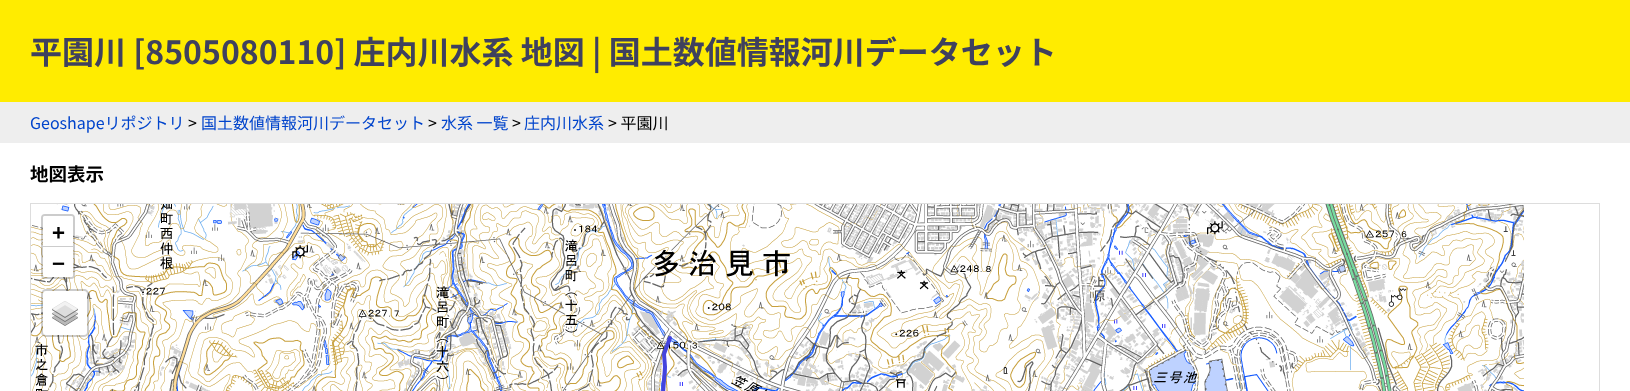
<!DOCTYPE html>
<meta charset="utf-8">
<style>body { margin: 0 } canvas { display: block }</style>
<canvas id="canvas" width="1630" height="391"></canvas>
<img id="img1" src="images/1.png" hidden>
<img id="img2" src="images/2.png" hidden>
<img id="img3" src="images/3.png" hidden>
<img id="img4" src="images/4.png" hidden>
<img id="img5" src="images/5.png" hidden>
<img id="img6" src="images/6.png" hidden>
<img id="img7" src="images/7.png" hidden>
<img id="img8" src="images/8.png" hidden>
<img id="img9" src="images/9.png" hidden>
<img id="img10" src="images/10.png" hidden>
<img id="img11" src="images/11.png" hidden>
<img id="img12" src="images/12.png" hidden>
<img id="img13" src="images/13.png" hidden>
<img id="img14" src="images/14.png" hidden>
<script>
window.onload = function () {
    const canvas = document.getElementById('canvas');
    const context = canvas.getContext('2d');
    context.miterLimit = 4;
    context.fontKerning = 'normal';

    context.fillStyle = 'rgb(255, 255, 255)';
    context.fillRect(0, 0, 1630, 391);
    context.fillStyle = 'rgb(255, 236, 0)';
    context.fillRect(0, 0, 1630, 102);
    context.fillStyle = 'rgb(238, 238, 238)';
    context.fillRect(0, 102, 1630, 41);
    context.strokeStyle = 'rgb(221, 221, 221)';
    context.strokeRect(30.5, 203.5, 1569, 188);
    context.drawImage(document.getElementById('img1'), 31, 204, 213, 83);
    context.drawImage(document.getElementById('img2'), 244, 204, 256, 83);
    context.drawImage(document.getElementById('img3'), 500, 204, 256, 83);
    context.drawImage(document.getElementById('img4'), 756, 204, 256, 83);
    context.drawImage(document.getElementById('img5'), 1012, 204, 256, 83);
    context.drawImage(document.getElementById('img6'), 1268, 204, 256, 83);
    context.drawImage(document.getElementById('img7'), 31, 287, 213, 104);
    context.drawImage(document.getElementById('img8'), 244, 287, 256, 104);
    context.drawImage(document.getElementById('img9'), 500, 287, 256, 104);
    context.drawImage(document.getElementById('img10'), 756, 287, 256, 104);
    context.drawImage(document.getElementById('img11'), 1012, 287, 256, 104);
    context.drawImage(document.getElementById('img12'), 1268, 287, 256, 104);
    context.drawImage(document.getElementById('img13'), 661, 336, 11, 55);
    context.beginPath();
    context.roundRect(42, 215, 32, 63, 3);
    context.strokeStyle = 'rgba(0, 0, 0, 0.2)';
    context.lineWidth = 2;
    context.stroke();
    context.fillStyle = 'rgb(255, 255, 255)';
    context.beginPath();
    context.roundRect(43, 216, 30, 31, [2, 2, 0, 0]);
    context.fill();
    context.fillStyle = 'rgb(204, 204, 204)';
    context.fillRect(43, 246, 30, 1);
    context.fillStyle = 'rgb(255, 255, 255)';
    context.beginPath();
    context.roundRect(43, 247, 30, 30, [0, 0, 2, 2]);
    context.fill();
    context.beginPath();
    context.roundRect(43, 291, 44, 44, 3);
    context.fill();
    context.beginPath();
    context.roundRect(42, 290, 46, 46, 4);
    context.stroke();
    context.drawImage(document.getElementById('img14'), 52, 301, 26, 25);
    context.font = 'bold 32px Noto Sans JP';
    context.fillStyle = 'rgb(63, 65, 94)';
    context.fillText('平園川 [8505080110] 庄内川水系 地図 | 国土数値情報河川データセット', 30, 64);
    context.font = '16px Noto Sans JP';
    context.fillStyle = 'rgb(0, 68, 204)';
    context.fillText('Geoshapeリポジトリ', 30, 129);
    context.fillStyle = 'rgb(0, 0, 0)';
    context.fillText('>', 188, 129);
    context.fillStyle = 'rgb(0, 68, 204)';
    context.fillText('国土数値情報河川データセット', 201, 129);
    context.fillStyle = 'rgb(0, 0, 0)';
    context.fillText('>', 428, 129);
    context.fillStyle = 'rgb(0, 68, 204)';
    context.fillText('水系 一覧', 441, 129);
    context.fillStyle = 'rgb(0, 0, 0)';
    context.fillText('>', 512, 129);
    context.fillStyle = 'rgb(0, 68, 204)';
    context.fillText('庄内川水系', 524, 129);
    context.fillStyle = 'rgb(0, 0, 0)';
    context.fillText('> 平園川', 608, 129);
    context.font = 'bold 18.5px Noto Sans JP';
    context.fillText('地図表示', 30, 181);
    context.font = 'bold 22px Noto Sans JP';
    context.fillText('+', 52, 241);
    context.fillText('−', 52, 272);
};
</script>
